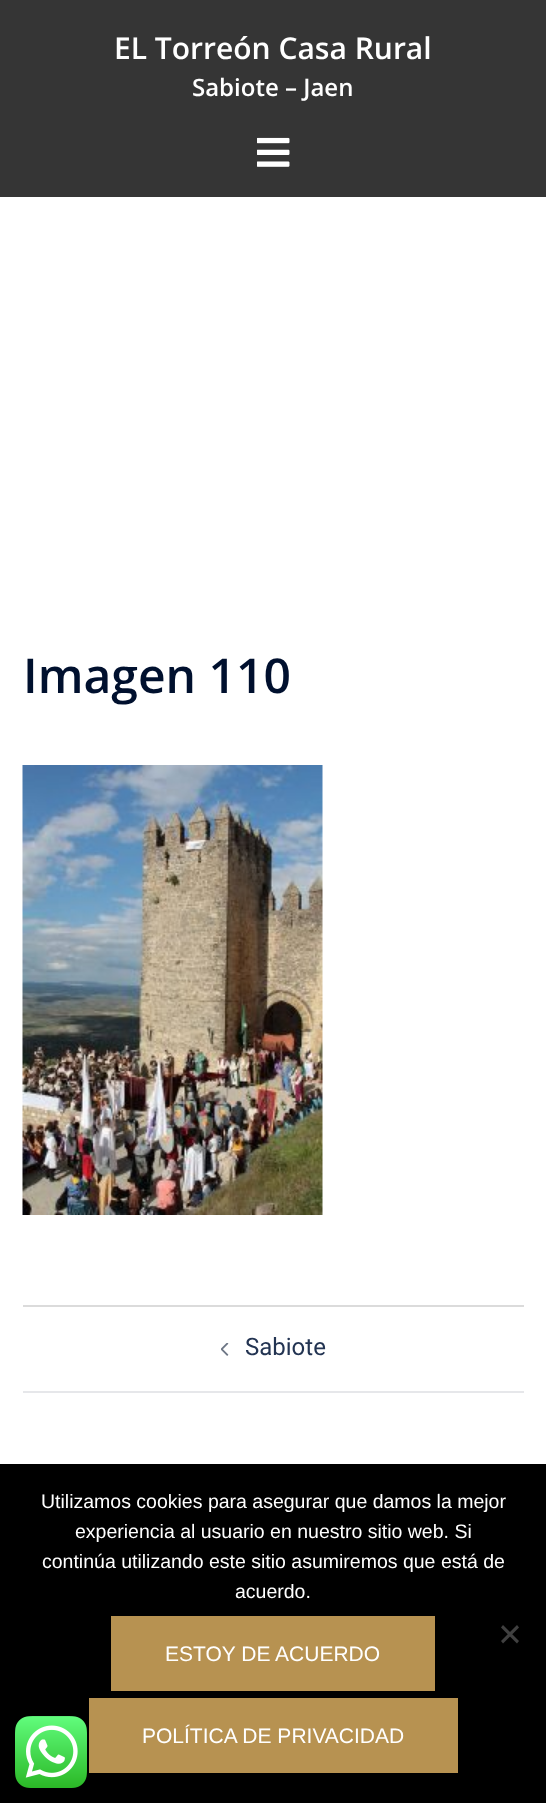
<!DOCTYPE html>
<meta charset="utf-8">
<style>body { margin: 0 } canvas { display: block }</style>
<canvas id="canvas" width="546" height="1803"></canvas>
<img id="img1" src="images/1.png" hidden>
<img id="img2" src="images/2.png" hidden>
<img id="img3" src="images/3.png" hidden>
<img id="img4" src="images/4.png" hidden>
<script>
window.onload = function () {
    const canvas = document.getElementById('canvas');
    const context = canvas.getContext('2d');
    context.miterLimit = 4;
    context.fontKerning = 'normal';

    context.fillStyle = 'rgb(255, 255, 255)';
    context.fillRect(0, 0, 546, 1803);
    context.fillStyle = 'rgb(53, 53, 53)';
    context.fillRect(0, 0, 546, 197);
    context.drawImage(document.getElementById('img1'), 257, 137, 33, 30);
    context.drawImage(document.getElementById('img2'), 22, 765, 301, 450);
    context.fillStyle = 'rgb(219, 219, 219)';
    context.fillRect(23, 1305, 501, 2);
    context.fillStyle = 'rgb(230, 231, 234)';
    context.fillRect(23, 1391, 501, 2);
    context.drawImage(document.getElementById('img3'), 221, 1343, 8, 13);
    context.fillStyle = 'rgb(0, 0, 0)';
    context.fillRect(0, 1464, 546, 339);
    context.fillStyle = 'rgb(64, 64, 64)';
    context.beginPath();
    context.moveTo(517, 1625);
    context.lineTo(519, 1627.5);
    context.lineTo(503, 1643.5);
    context.lineTo(501, 1641);
    context.closePath();
    context.fill();
    context.beginPath();
    context.moveTo(501, 1627.5);
    context.lineTo(503, 1625);
    context.lineTo(519, 1641);
    context.lineTo(517, 1643.5);
    context.closePath();
    context.fill();
    context.fillStyle = 'rgb(183, 146, 81)';
    context.fillRect(111, 1616, 324, 75);
    context.fillRect(89, 1698, 369, 75);
    context.drawImage(document.getElementById('img4'), 15, 1716, 72, 72);
    context.font = '600 30px Open Sans';
    context.fillStyle = 'rgb(255, 255, 255)';
    context.fillText('EL Torreón Casa Rural', 114, 59);
    context.font = '600 24px Open Sans';
    context.fillText('Sabiote – Jaen', 192, 96);
    context.font = '600 48px Open Sans';
    context.fillStyle = 'rgb(0, 16, 46)';
    context.fillText('Imagen 110', 23, 693);
    context.font = '24px Roboto';
    context.fillStyle = 'rgb(35, 52, 82)';
    context.fillText('Sabiote', 245, 1355);
    context.font = '19.5px Liberation Sans';
    context.fillStyle = 'rgb(255, 255, 255)';
    context.fillText('Utilizamos cookies para asegurar que damos la mejor', 41, 1508);
    context.fillText('experiencia al usuario en nuestro sitio web. Si', 75, 1538);
    context.fillText('continúa utilizando este sitio asumiremos que está de', 42, 1568);
    context.fillText('acuerdo.', 235, 1598);
    context.font = '21px Liberation Sans';
    context.fillText('ESTOY DE ACUERDO', 165, 1661);
    context.fillText('POLÍTICA DE PRIVACIDAD', 142, 1743);
};
</script>
